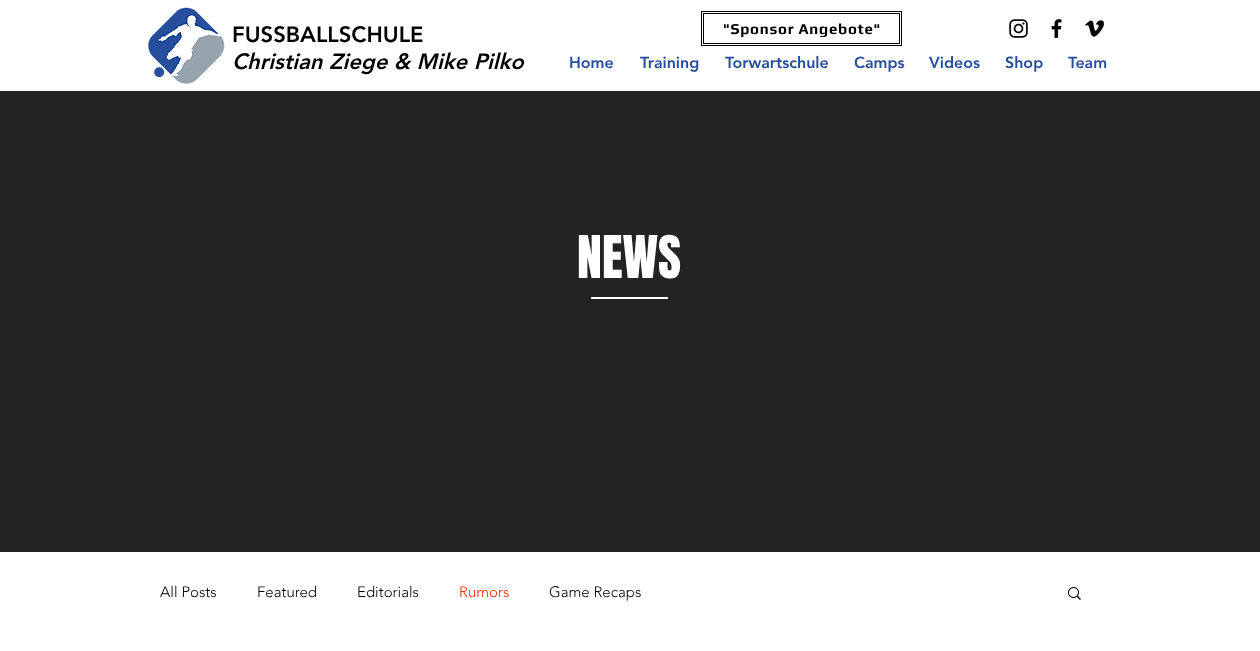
<!DOCTYPE html>
<meta charset="utf-8">
<style>body { margin: 0 } canvas { display: block }</style>
<canvas id="canvas" width="1260" height="651"></canvas>
<img id="img1" src="images/1.png" hidden>
<img id="img2" src="images/2.png" hidden>
<img id="img3" src="images/3.png" hidden>
<img id="img4" src="images/4.png" hidden>
<img id="img5" src="images/5.png" hidden>
<script>
window.onload = function () {
    const canvas = document.getElementById('canvas');
    const context = canvas.getContext('2d');
    context.miterLimit = 4;
    context.fontKerning = 'normal';

    context.fillStyle = 'rgb(255, 255, 255)';
    context.fillRect(0, 0, 1260, 651);
    context.drawImage(document.getElementById('img1'), 148, 7, 77, 77);
    context.strokeStyle = 'rgb(0, 0, 0)';
    context.strokeRect(701.5, 11.5, 200, 34);
    context.strokeRect(703.5, 13.5, 196, 30);
    context.drawImage(document.getElementById('img2'), 1009, 19, 19, 19);
    context.drawImage(document.getElementById('img3'), 1051, 19, 11, 20);
    context.drawImage(document.getElementById('img4'), 1085, 20, 20, 17);
    context.fillStyle = 'rgb(36, 35, 35)';
    context.fillRect(0, 91, 1260, 461);
    context.fillStyle = 'rgb(255, 255, 255)';
    context.fillRect(591, 297, 77, 2);
    context.drawImage(document.getElementById('img5'), 1068, 587, 13, 13);
    context.font = '900 22px "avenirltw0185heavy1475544"';
    context.fillStyle = 'rgb(0, 0, 0)';
    context.fillText('FUSSBALLSCHULE', 232, 42);
    context.font = 'italic 900 22px "avenirltw0185heavy1475544"';
    context.fillText('Christian Ziege & Mike Pilko', 232, 69);
    context.save();
    context.beginPath();
    context.rect(723, 20, 157, 17);
    context.clip();
    context.letterSpacing = '0.75px';
    context.font = 'bold 15px Play';
    context.fillText('"Sponsor Angebote"', 723, 34);
    context.restore();
    context.font = '900 16px "avenirltw0185heavy1475544"';
    context.fillStyle = 'rgb(38, 78, 157)';
    context.fillText('Home', 569, 68);
    context.fillText('Training', 640, 68);
    context.fillText('Torwartschule', 725, 68);
    context.fillText('Camps', 854, 68);
    context.fillText('Videos', 929, 68);
    context.fillText('Shop', 1005, 68);
    context.fillText('Team', 1068, 68);
    context.font = '50px Anton';
    context.fillStyle = 'rgb(255, 255, 255)';
    context.fillText('NEWS', 577, 278);
    context.font = '300 15px "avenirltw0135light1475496"';
    context.fillStyle = 'rgb(0, 0, 0)';
    context.fillText('All Posts', 160, 597);
    context.fillText('Featured', 257, 597);
    context.fillText('Editorials', 357, 597);
    context.fillStyle = 'rgb(254, 42, 0)';
    context.fillText('Rumors', 459, 597);
    context.fillStyle = 'rgb(0, 0, 0)';
    context.fillText('Game Recaps', 549, 597);
};
</script>
